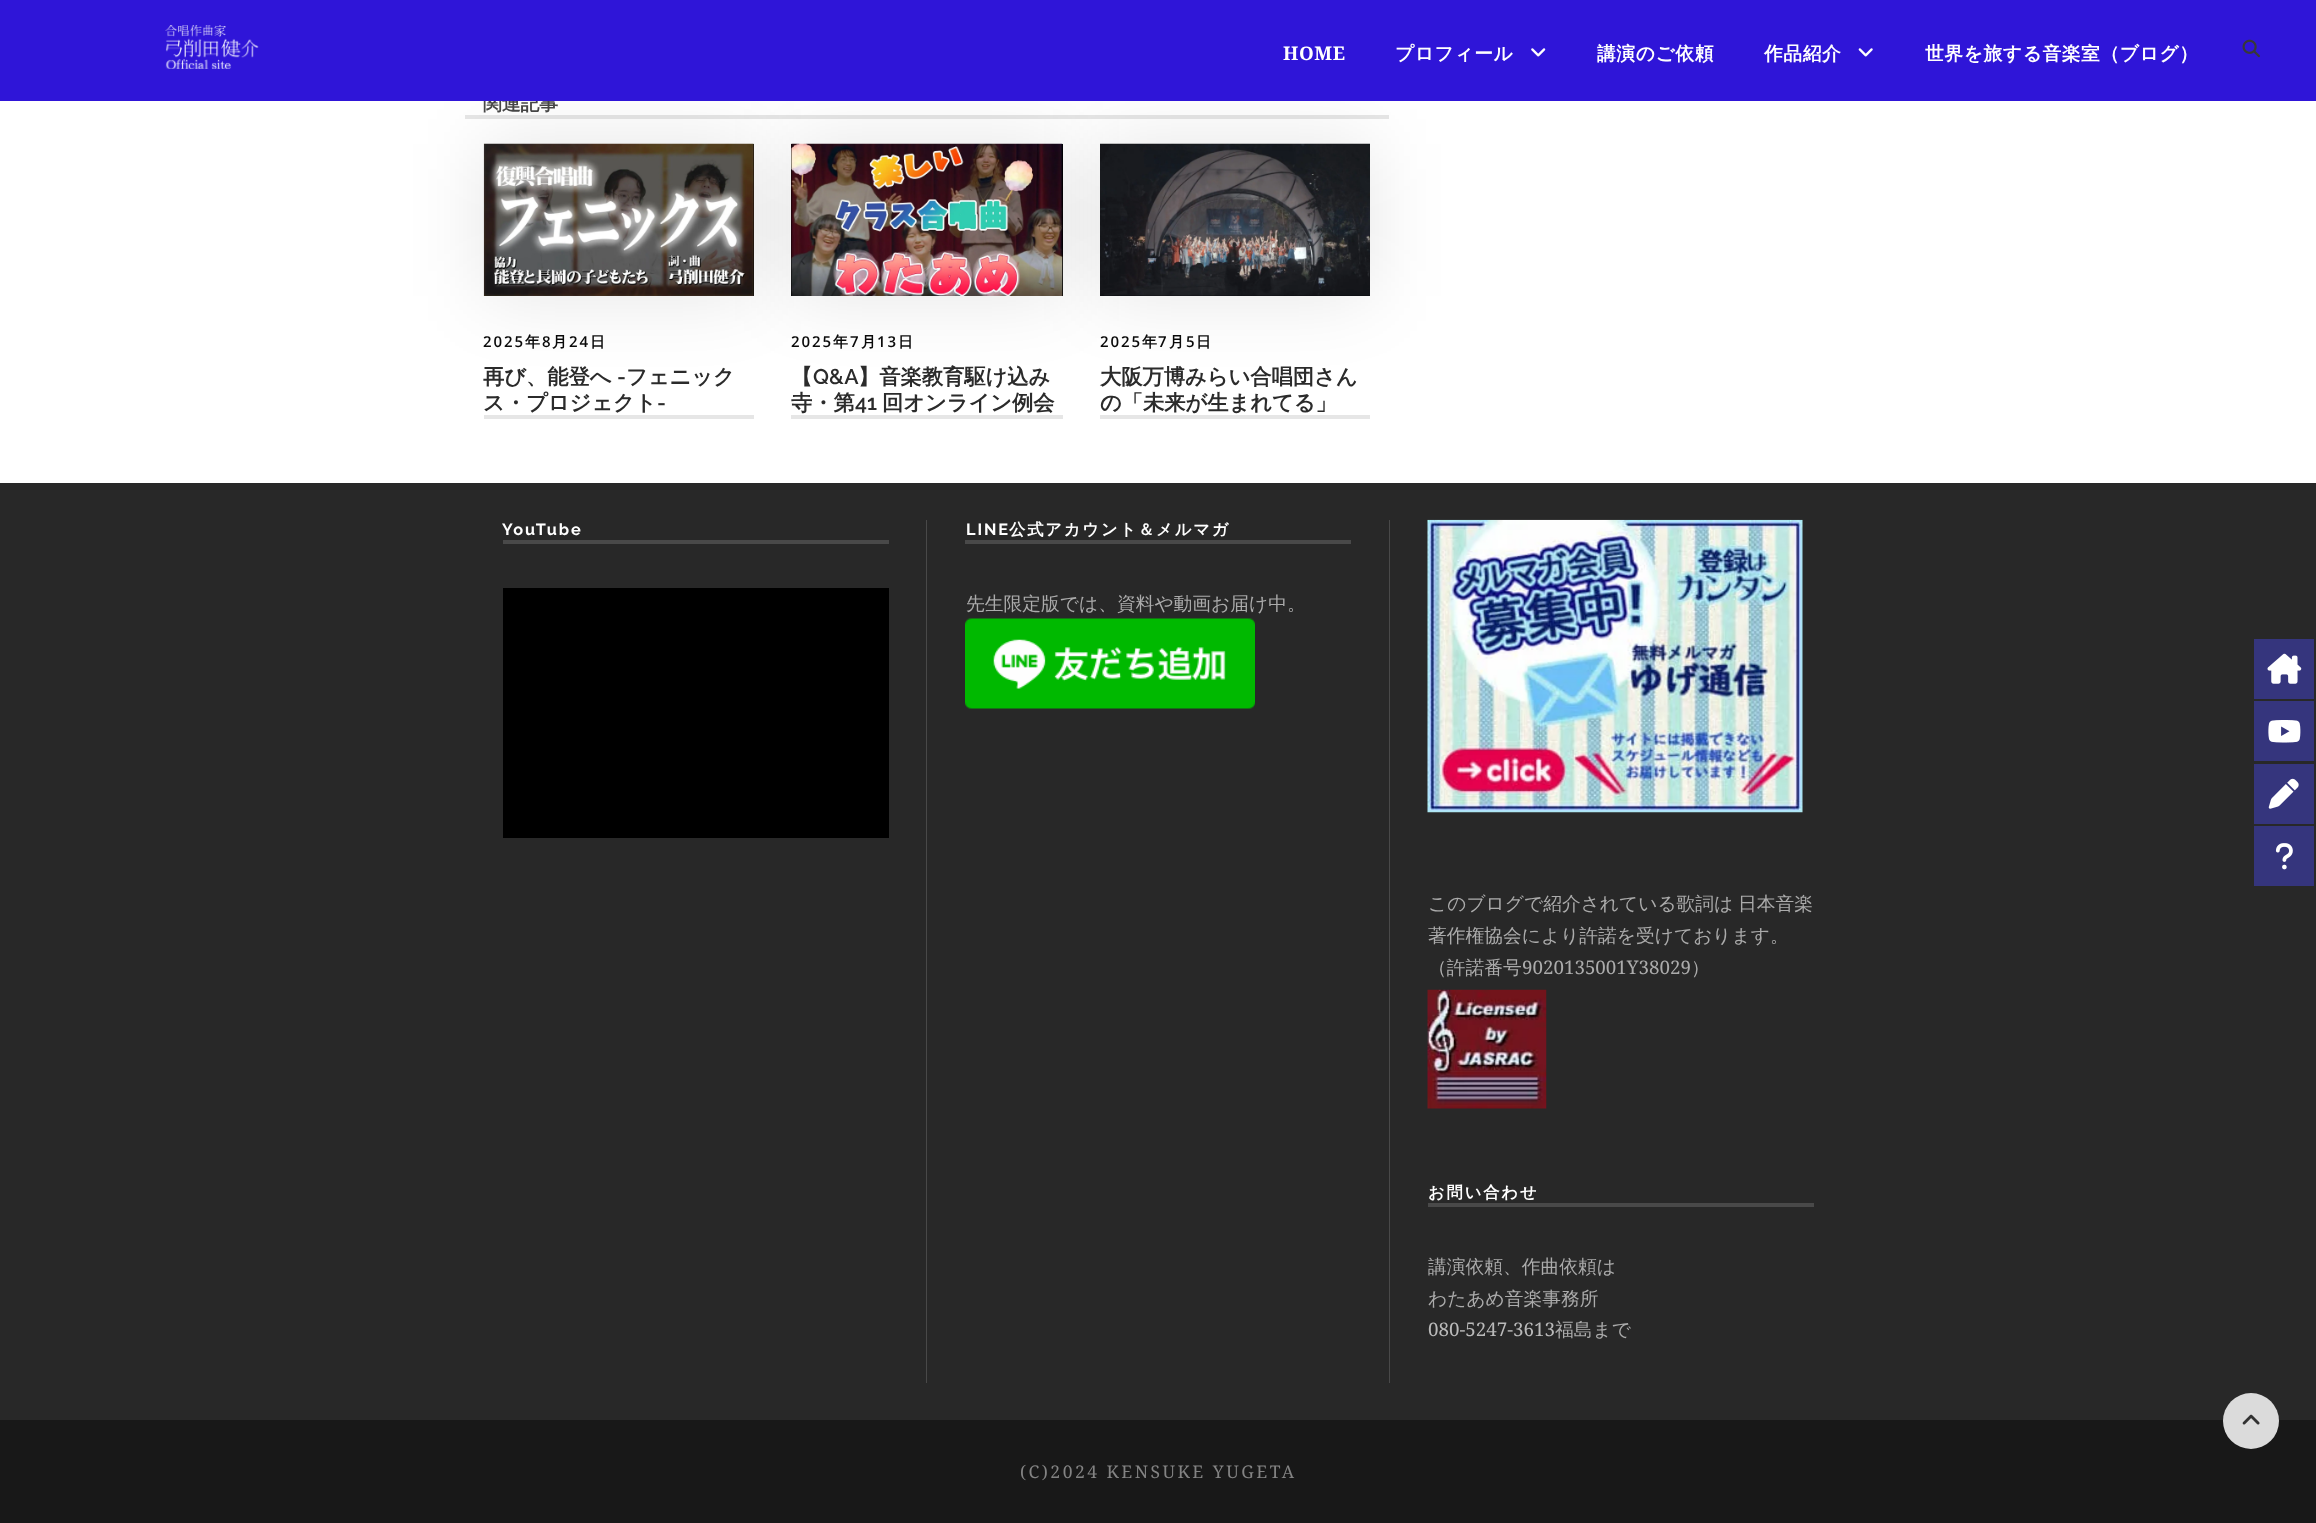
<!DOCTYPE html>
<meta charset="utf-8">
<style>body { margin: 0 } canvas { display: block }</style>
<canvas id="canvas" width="2316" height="1523"></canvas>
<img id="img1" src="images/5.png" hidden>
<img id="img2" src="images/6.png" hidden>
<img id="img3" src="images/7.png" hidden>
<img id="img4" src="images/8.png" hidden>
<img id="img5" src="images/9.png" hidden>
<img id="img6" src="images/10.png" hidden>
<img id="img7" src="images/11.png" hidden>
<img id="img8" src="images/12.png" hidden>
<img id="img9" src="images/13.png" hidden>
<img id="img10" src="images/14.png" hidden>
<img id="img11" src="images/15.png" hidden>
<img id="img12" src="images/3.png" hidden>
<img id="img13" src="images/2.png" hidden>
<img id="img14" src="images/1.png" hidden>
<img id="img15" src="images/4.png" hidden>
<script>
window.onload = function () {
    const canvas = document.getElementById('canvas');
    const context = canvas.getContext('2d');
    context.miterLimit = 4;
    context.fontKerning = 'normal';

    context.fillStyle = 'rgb(255, 255, 255)';
    context.fillRect(0, 0, 2316, 1523);
    context.fillStyle = 'rgb(230, 230, 230)';
    context.fillRect(465, 115, 924, 4);
    context.fillStyle = 'rgba(0, 0, 0, 0.1)';
    context.filter = 'blur(37.5px)';
    context.beginPath();
    context.rect(484, 144, 270, 152);
    context.fill();
    context.filter = 'none';
    context.fillStyle = 'rgb(0, 0, 0)';
    context.fillRect(753, 144, 1, 152);
    context.drawImage(document.getElementById('img1'), 483, 143, 271, 153);
    context.fillStyle = 'rgb(230, 230, 230)';
    context.fillRect(484, 415, 270, 4);
    context.fillStyle = 'rgba(0, 0, 0, 0.1)';
    context.filter = 'blur(37.5px)';
    context.beginPath();
    context.rect(791, 144, 272, 152);
    context.fill();
    context.filter = 'none';
    context.fillStyle = 'rgb(0, 0, 0)';
    context.fillRect(791, 144, 272, 152);
    context.drawImage(document.getElementById('img2'), 791, 143, 272, 153);
    context.fillStyle = 'rgb(230, 230, 230)';
    context.fillRect(791, 415, 272, 4);
    context.fillStyle = 'rgba(0, 0, 0, 0.1)';
    context.filter = 'blur(37.5px)';
    context.beginPath();
    context.rect(1100, 144, 270, 152);
    context.fill();
    context.filter = 'none';
    context.drawImage(document.getElementById('img3'), 1100, 143, 270, 153);
    context.fillStyle = 'rgb(230, 230, 230)';
    context.fillRect(1100, 415, 270, 4);
    context.fillStyle = 'rgb(40, 40, 40)';
    context.fillRect(0, 483, 2316, 937);
    context.fillStyle = 'rgb(73, 73, 73)';
    context.fillRect(503, 540, 386, 4);
    context.fillStyle = 'rgb(0, 0, 0)';
    context.fillRect(503, 588, 386, 250);
    context.fillStyle = 'rgb(73, 73, 73)';
    context.fillRect(926, 520, 1, 863);
    context.fillRect(965, 540, 386, 4);
    context.drawImage(document.getElementById('img4'), 965, 618, 290, 91);
    context.fillRect(1389, 520, 1, 863);
    context.drawImage(document.getElementById('img5'), 1427, 519, 376, 294);
    context.drawImage(document.getElementById('img6'), 1427, 989, 120, 120);
    context.fillRect(1428, 1203, 386, 4);
    context.fillStyle = 'rgb(24, 24, 24)';
    context.fillRect(0, 1420, 2316, 103);
    context.fillStyle = 'rgb(53, 53, 125)';
    context.fillRect(2254, 639, 60, 60);
    context.drawImage(document.getElementById('img7'), 2267, 653, 35, 31);
    context.fillRect(2254, 701, 60, 60);
    context.drawImage(document.getElementById('img8'), 2268, 720, 33, 23);
    context.fillRect(2254, 764, 60, 60);
    context.drawImage(document.getElementById('img9'), 2268, 778, 31, 31);
    context.fillRect(2254, 826, 60, 60);
    context.drawImage(document.getElementById('img10'), 2275, 843, 18, 27);
    context.fillStyle = 'rgb(219, 219, 219)';
    context.beginPath();
    context.arc(2251, 1421, 28, 0, 2 * Math.PI);
    context.fill();
    context.drawImage(document.getElementById('img11'), 2242, 1414, 18, 11);
    context.font = 'bold 18.75px WenQuanYi Zen Hei';
    context.fillStyle = 'rgb(70, 70, 70)';
    context.fillText('関連記事', 483, 110);
    context.fillStyle = 'rgb(47, 21, 216)';
    context.fillRect(0, 0, 2316, 101);
    context.letterSpacing = '0.6px';
    context.fillStyle = 'rgb(255, 255, 255)';
    context.fillText('世界を旅する音楽室（ブログ）', 1925, 60);
    context.drawImage(document.getElementById('img12'), 1858, 48, 15, 9);
    context.fillText('作品紹介', 1764, 60);
    context.fillText('講演のご依頼', 1597, 60);
    context.drawImage(document.getElementById('img13'), 1531, 48, 15, 9);
    context.fillText('プロフィール', 1395, 60);
    context.font = 'bold 18.75px Noto Serif';
    context.fillText('HOME', 1283, 60);
    context.drawImage(document.getElementById('img14'), 165, 25, 94, 44);
    context.drawImage(document.getElementById('img15'), 2242, 39, 18, 19);
    context.letterSpacing = '1.9px';
    context.font = '600 15px Open Sans';
    context.fillStyle = 'rgb(10, 10, 10)';
    context.fillText('2025', 483, 347);
    context.font = 'bold 15px WenQuanYi Zen Hei';
    context.fillText('年', 525, 347);
    context.font = '600 15px Open Sans';
    context.fillText('8', 542, 347);
    context.font = 'bold 15px WenQuanYi Zen Hei';
    context.fillText('月', 552, 347);
    context.font = '600 15px Open Sans';
    context.fillText('24', 569, 347);
    context.font = 'bold 15px WenQuanYi Zen Hei';
    context.fillText('日', 590, 347);
    context.letterSpacing = '0px';
    context.font = 'bold 21.25px WenQuanYi Zen Hei';
    context.fillStyle = 'rgb(43, 43, 43)';
    context.fillText('再び、能登へ', 483, 384);
    context.font = '600 21.25px Raleway';
    context.fillText('-', 617, 384);
    context.font = 'bold 21.25px WenQuanYi Zen Hei';
    context.fillText('フェニック', 626, 384);
    context.fillText('ス・プロジェクト', 483, 410);
    context.font = '600 21.25px Raleway';
    context.fillText('-', 657, 410);
    context.letterSpacing = '1.9px';
    context.font = '600 15px Open Sans';
    context.fillStyle = 'rgb(10, 10, 10)';
    context.fillText('2025', 791, 347);
    context.font = 'bold 15px WenQuanYi Zen Hei';
    context.fillText('年', 833, 347);
    context.font = '600 15px Open Sans';
    context.fillText('7', 850, 347);
    context.font = 'bold 15px WenQuanYi Zen Hei';
    context.fillText('月', 861, 347);
    context.font = '600 15px Open Sans';
    context.fillText('13', 877, 347);
    context.font = 'bold 15px WenQuanYi Zen Hei';
    context.fillText('日', 898, 347);
    context.letterSpacing = '0px';
    context.font = 'bold 21.25px WenQuanYi Zen Hei';
    context.fillStyle = 'rgb(43, 43, 43)';
    context.fillText('【', 791, 384);
    context.font = '600 21.25px Raleway';
    context.fillText('Q&A', 813, 384);
    context.font = 'bold 21.25px WenQuanYi Zen Hei';
    context.fillText('】音楽教育駆け込み', 858, 384);
    context.fillText('寺・第', 791, 410);
    context.font = '600 21.25px Raleway';
    context.fillText('41', 855, 410);
    context.font = 'bold 21.25px WenQuanYi Zen Hei';
    context.fillText('回オンライン例会', 882, 410);
    context.letterSpacing = '1.9px';
    context.font = '600 15px Open Sans';
    context.fillStyle = 'rgb(10, 10, 10)';
    context.fillText('2025', 1100, 347);
    context.font = 'bold 15px WenQuanYi Zen Hei';
    context.fillText('年', 1142, 347);
    context.font = '600 15px Open Sans';
    context.fillText('7', 1158, 347);
    context.font = 'bold 15px WenQuanYi Zen Hei';
    context.fillText('月', 1169, 347);
    context.font = '600 15px Open Sans';
    context.fillText('5', 1186, 347);
    context.font = 'bold 15px WenQuanYi Zen Hei';
    context.fillText('日', 1196, 347);
    context.letterSpacing = '0px';
    context.font = 'bold 21.25px WenQuanYi Zen Hei';
    context.fillStyle = 'rgb(43, 43, 43)';
    context.fillText('大阪万博みらい合唱団さん', 1100, 384);
    context.fillText('の「未来が生まれてる」', 1100, 410);
    context.letterSpacing = '1.9px';
    context.font = 'bold 16.25px Raleway';
    context.fillStyle = 'rgb(255, 255, 255)';
    context.fillText('YouTube', 502, 535);
    context.fillText('LINE', 966, 535);
    context.font = 'bold 16.25px WenQuanYi Zen Hei';
    context.fillText('公式アカウント＆メルマガ', 1009, 535);
    context.letterSpacing = '0px';
    context.font = '500 18.75px WenQuanYi Zen Hei';
    context.fillStyle = 'rgb(171, 171, 171)';
    context.fillText('先生限定版では、資料や動画お届け中。', 966, 610);
    context.wordSpacing = '-1px';
    context.fillText('このブログで紹介されている歌詞は 日本音楽', 1428, 910);
    context.wordSpacing = '0px';
    context.fillText('著作権協会により許諾を受けております。', 1428, 942);
    context.fillText('（許諾番号', 1428, 974);
    context.font = '18.75px Noto Serif';
    context.fillText('9020135001Y38029', 1522, 974);
    context.font = '500 18.75px WenQuanYi Zen Hei';
    context.fillText('）', 1691, 974);
    context.letterSpacing = '1.9px';
    context.font = 'bold 16.25px WenQuanYi Zen Hei';
    context.fillStyle = 'rgb(255, 255, 255)';
    context.fillText('お問い合わせ', 1428, 1198);
    context.letterSpacing = '0px';
    context.font = '500 18.75px WenQuanYi Zen Hei';
    context.fillStyle = 'rgb(171, 171, 171)';
    context.fillText('講演依頼、作曲依頼は', 1428, 1273);
    context.fillText('わたあめ音楽事務所', 1428, 1305);
    context.font = '18.75px Noto Serif';
    context.fillStyle = 'rgb(186, 186, 186)';
    context.fillText('080-5247-3613', 1428, 1336);
    context.font = '500 18.75px WenQuanYi Zen Hei';
    context.fillStyle = 'rgb(171, 171, 171)';
    context.fillText('福島まで', 1555, 1336);
    context.letterSpacing = '2.5px';
    context.font = '17.5px Noto Serif';
    context.fillStyle = 'rgb(131, 131, 131)';
    context.fillText('(C)2024 KENSUKE YUGETA', 1020, 1478);
};
</script>
